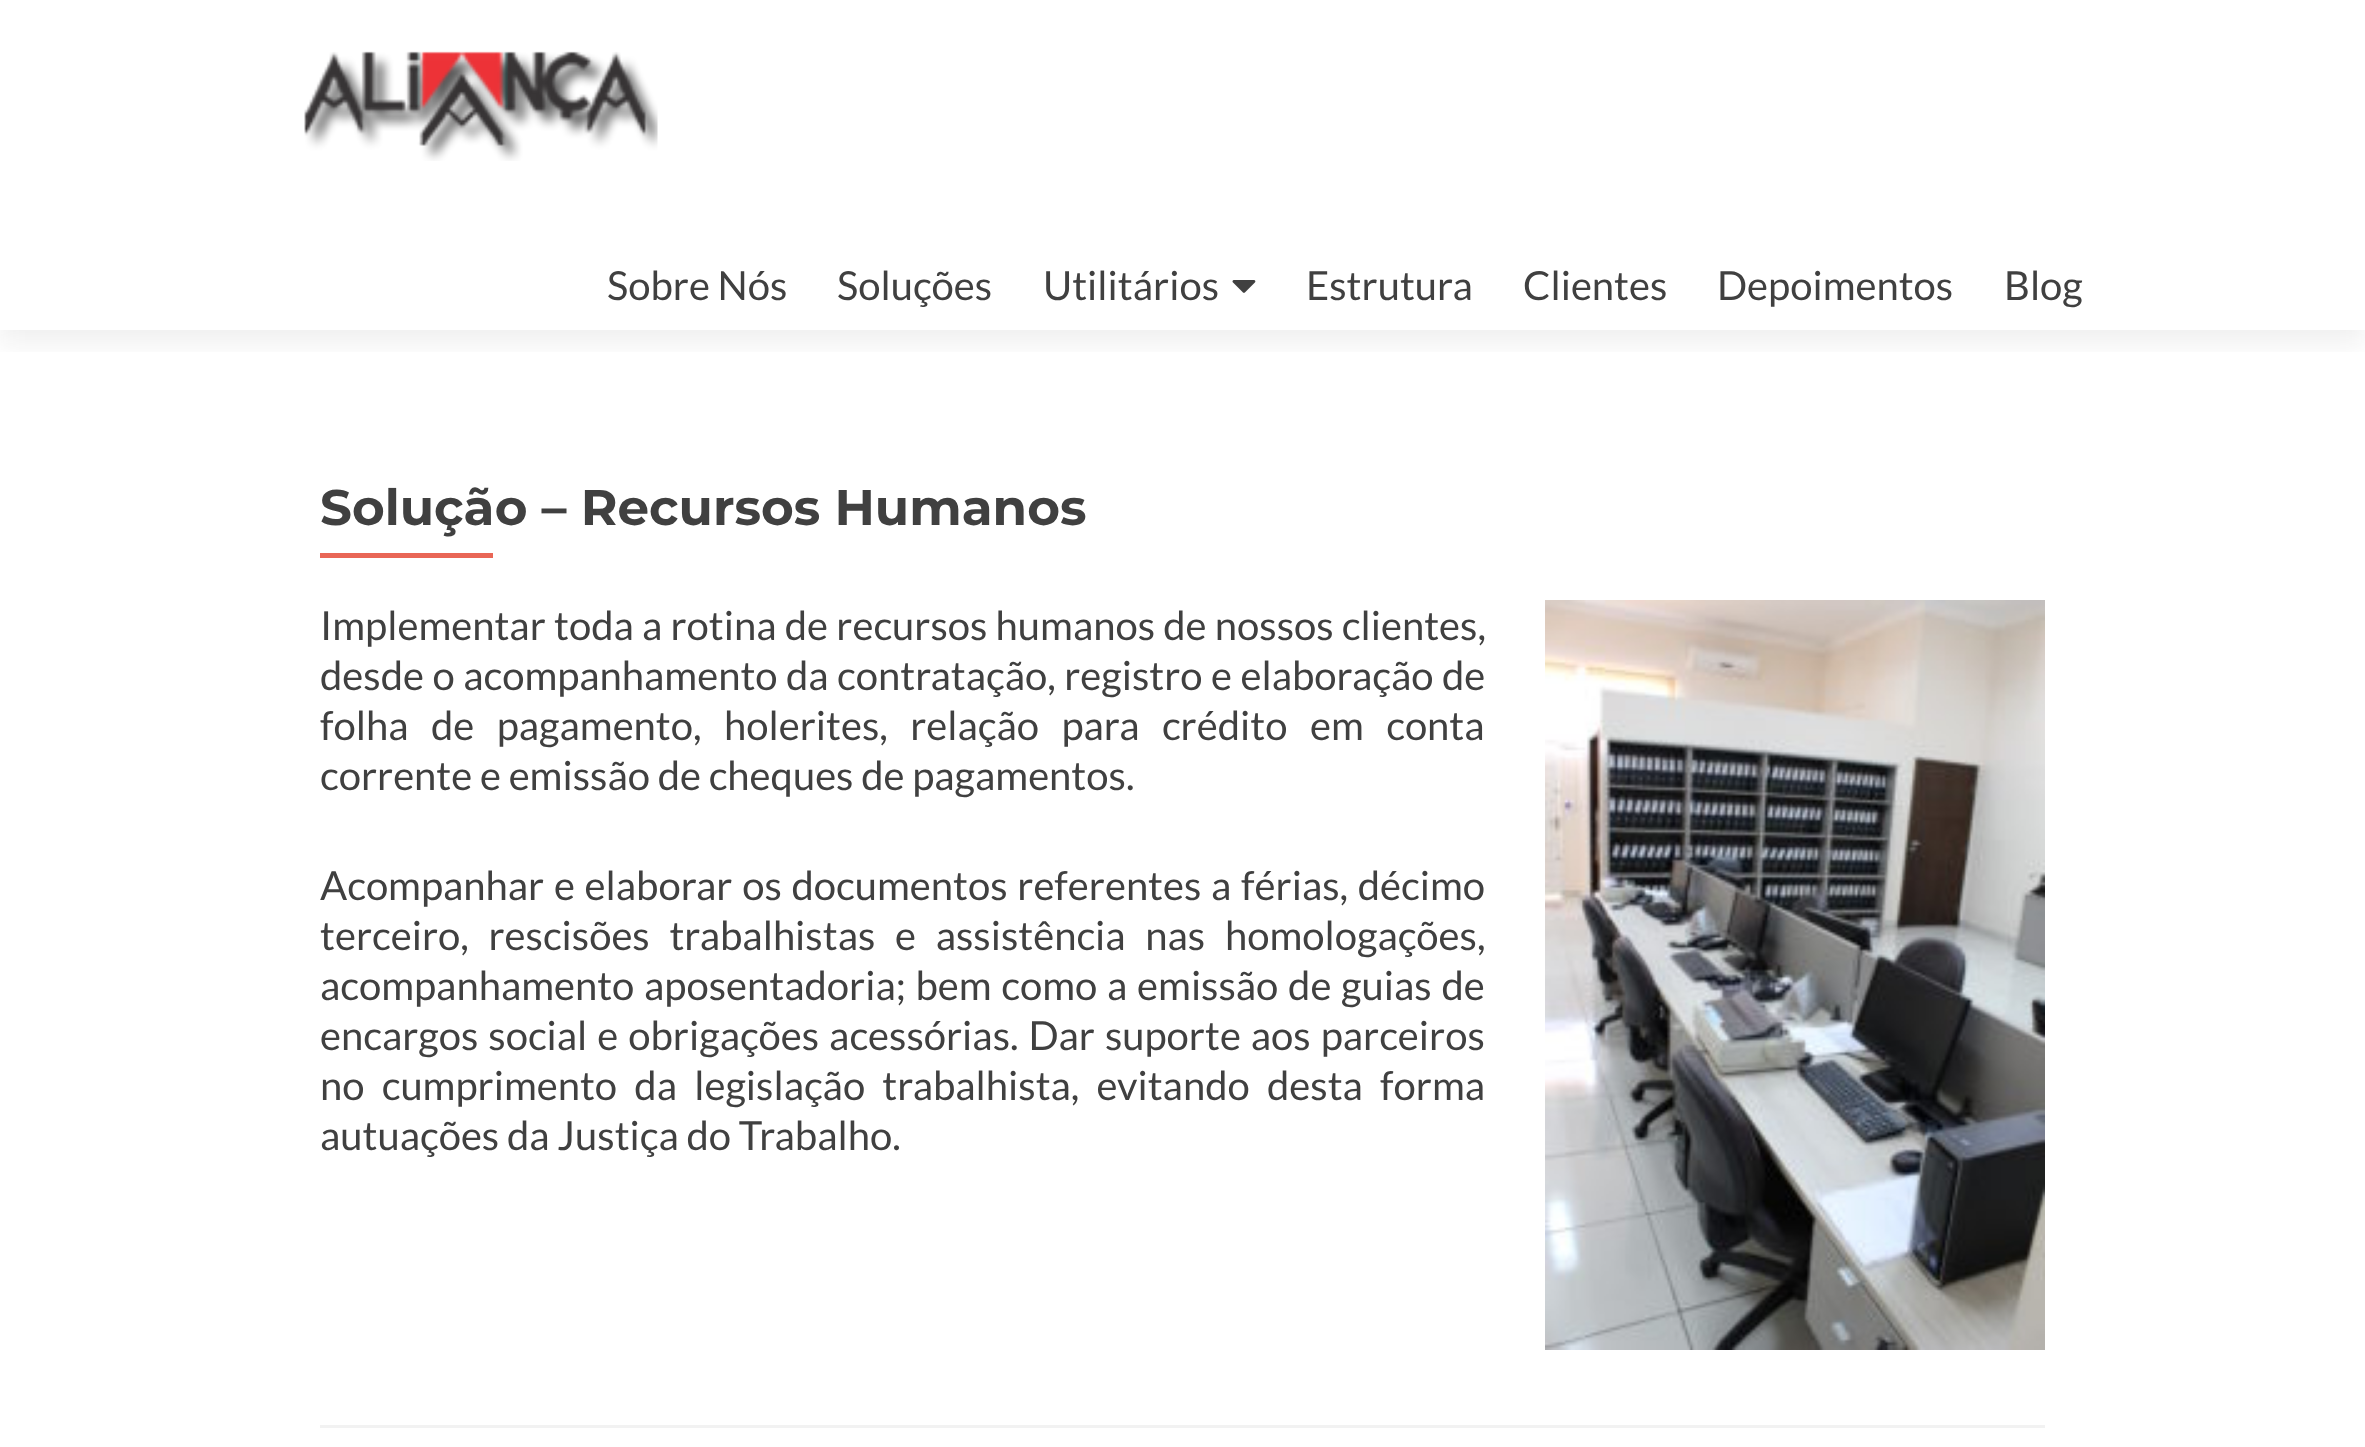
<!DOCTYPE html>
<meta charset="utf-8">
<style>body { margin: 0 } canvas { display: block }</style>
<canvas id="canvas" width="2365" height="1447"></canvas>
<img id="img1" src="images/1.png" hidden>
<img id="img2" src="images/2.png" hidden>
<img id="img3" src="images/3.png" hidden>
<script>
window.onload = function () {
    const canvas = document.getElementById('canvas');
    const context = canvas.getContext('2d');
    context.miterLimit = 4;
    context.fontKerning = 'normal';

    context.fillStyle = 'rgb(255, 255, 255)';
    context.fillRect(0, 0, 2365, 1447);
    context.save();
    context.beginPath();
    context.rect(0, 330, 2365, 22);
    context.clip();
    context.fillStyle = 'rgba(50, 50, 50, 0.08)';
    context.filter = 'blur(14px)';
    context.beginPath();
    context.rect(0, 13, 2365, 330);
    context.fill();
    context.filter = 'none';
    context.restore();
    context.drawImage(document.getElementById('img1'), 304, 51, 354, 110);
    context.drawImage(document.getElementById('img2'), 1232, 280, 24, 13);
    context.fillStyle = 'rgb(242, 242, 242)';
    context.fillRect(320, 1425, 1725, 3);
    context.fillStyle = 'rgb(233, 102, 86)';
    context.fillRect(320, 553, 173, 5);
    context.drawImage(document.getElementById('img3'), 1545, 600, 500, 750);
    context.font = '40px Lato';
    context.fillStyle = 'rgb(64, 64, 64)';
    context.fillText('Sobre Nós', 607, 300);
    context.fillText('Soluções', 837, 300);
    context.fillText('Utilitários', 1043, 300);
    context.fillText('Estrutura', 1306, 300);
    context.fillText('Clientes', 1523, 300);
    context.fillText('Depoimentos', 1717, 300);
    context.fillText('Blog', 2004, 300);
    context.font = 'bold 50px Montserrat';
    context.fillText('Solução – Recursos Humanos', 320, 525);
    context.wordSpacing = '0.5px';
    context.font = '40px Lato';
    context.fillText('Implementar toda a rotina de recursos humanos de nossos clientes,', 320, 640);
    context.wordSpacing = '0.75px';
    context.fillText('desde o acompanhamento da contratação, registro e elaboração de', 320, 690);
    context.wordSpacing = '14.75px';
    context.fillText('folha de pagamento, holerites, relação para crédito em conta', 320, 740);
    context.wordSpacing = '0px';
    context.fillText('corrente e emissão de cheques de pagamentos.', 320, 790);
    context.wordSpacing = '2px';
    context.fillText('Acompanhar e elaborar os documentos referentes a férias, décimo', 320, 900);
    context.wordSpacing = '12px';
    context.fillText('terceiro, rescisões trabalhistas e assistência nas homologações,', 320, 950);
    context.wordSpacing = '2px';
    context.fillText('acompanhamento aposentadoria; bem como a emissão de guias de', 320, 1000);
    context.wordSpacing = '2.25px';
    context.fillText('encargos social e obrigações acessórias. Dar suporte aos parceiros', 320, 1050);
    context.wordSpacing = '9.5px';
    context.fillText('no cumprimento da legislação trabalhista, evitando desta forma', 320, 1100);
    context.wordSpacing = '0px';
    context.fillText('autuações da Justiça do Trabalho.', 320, 1150);
};
</script>
